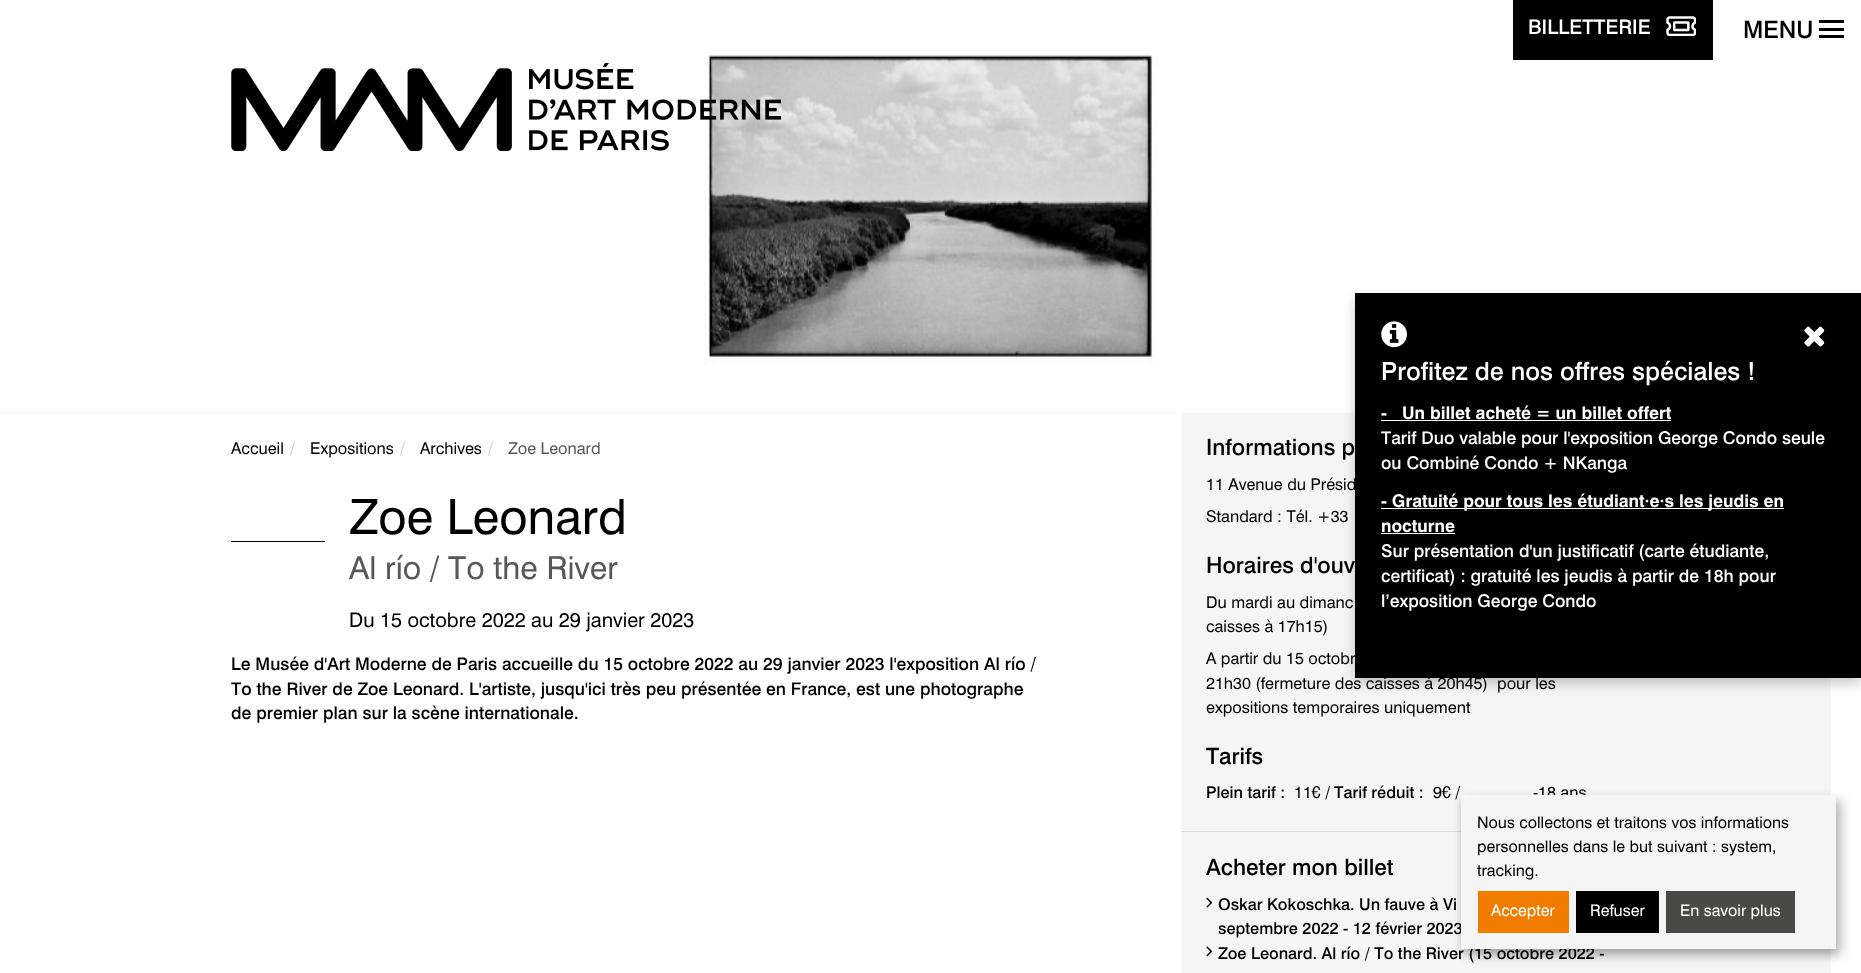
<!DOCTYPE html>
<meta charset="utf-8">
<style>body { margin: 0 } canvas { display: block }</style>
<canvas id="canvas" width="1861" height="973"></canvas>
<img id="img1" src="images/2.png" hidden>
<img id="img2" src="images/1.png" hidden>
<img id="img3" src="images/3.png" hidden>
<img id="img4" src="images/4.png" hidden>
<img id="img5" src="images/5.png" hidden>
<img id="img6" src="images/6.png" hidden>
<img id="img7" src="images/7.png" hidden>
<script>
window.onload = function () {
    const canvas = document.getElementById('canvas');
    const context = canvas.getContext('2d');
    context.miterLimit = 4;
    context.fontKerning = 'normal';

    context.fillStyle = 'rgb(255, 255, 255)';
    context.fillRect(0, 0, 1861, 973);
    context.fillStyle = 'rgb(245, 245, 245)';
    context.fillRect(0, 412, 1355, 1);
    context.drawImage(document.getElementById('img1'), 0, 0, 1861, 413);
    context.fillStyle = 'rgb(0, 0, 0)';
    context.fillRect(1513, 0, 200, 60);
    context.drawImage(document.getElementById('img2'), 1666, 16, 30, 20);
    context.fillRect(1819, 20, 25, 3);
    context.fillRect(1819, 28, 25, 3);
    context.fillRect(1819, 35, 25, 3);
    context.drawImage(document.getElementById('img3'), 231, 63, 550, 88);
    context.fillStyle = 'rgb(245, 245, 245)';
    context.fillRect(1181, 413, 650, 560);
    context.fillStyle = 'rgba(0, 0, 0, 0.2)';
    context.filter = 'blur(6px)';
    context.beginPath();
    context.rect(1355, 299, 506, 385);
    context.fill();
    context.filter = 'none';
    context.fillStyle = 'rgb(0, 0, 0)';
    context.fillRect(1355, 293, 506, 385);
    context.drawImage(document.getElementById('img4'), 1804, 326, 21, 21);
    context.drawImage(document.getElementById('img5'), 1381, 321, 26, 27);
    context.fillStyle = 'rgb(255, 255, 255)';
    context.fillRect(1381, 420, 290, 1);
    context.fillRect(1381, 508, 403, 1);
    context.fillRect(1381, 533, 74, 1);
    context.fillStyle = 'rgb(0, 0, 0)';
    context.fillRect(231, 541, 94, 1);
    context.fillStyle = 'rgb(220, 220, 220)';
    context.fillRect(1181, 831, 280, 1);
    context.drawImage(document.getElementById('img6'), 1206, 897, 7, 11);
    context.drawImage(document.getElementById('img7'), 1206, 946, 7, 11);
    context.fillStyle = 'rgba(0, 0, 0, 0.19)';
    context.filter = 'blur(6px)';
    context.beginPath();
    context.rect(1468, 801, 375, 154);
    context.fill();
    context.filter = 'none';
    context.fillStyle = 'rgba(0, 0, 0, 0.2)';
    context.filter = 'blur(4px)';
    context.beginPath();
    context.rect(1461, 800, 375, 154);
    context.fill();
    context.filter = 'none';
    context.font = '500 20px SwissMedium';
    context.fillStyle = 'rgb(255, 255, 255)';
    context.fillText('BILLETTERIE', 1528, 34);
    context.font = '500 24px SwissMedium';
    context.fillStyle = 'rgb(0, 0, 0)';
    context.fillText('MENU', 1743, 38);
    context.font = '500 25px SwissMedium';
    context.fillStyle = 'rgb(255, 255, 255)';
    context.fillText('Profitez de nos offres spéciales !', 1381, 380);
    context.font = 'bold 17.5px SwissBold';
    context.fillText('-', 1381, 419);
    context.fillText('Un billet acheté = un billet offert', 1402, 419);
    context.font = '500 17.5px SwissMedium';
    context.fillText('Tarif Duo valable pour l\'exposition George Condo seule', 1381, 444);
    context.fillText('ou Combiné Condo + NKanga', 1381, 469);
    context.font = 'bold 17.5px SwissBold';
    context.fillText('- Gratuité pour tous les étudiant·e·s les jeudis en', 1381, 507);
    context.fillText('nocturne', 1381, 532);
    context.font = '500 17.5px SwissMedium';
    context.fillText('Sur présentation d\'un justificatif (carte étudiante,', 1381, 557);
    context.fillText('certificat) : gratuité les jeudis à partir de 18h pour', 1381, 582);
    context.fillText('l’exposition George Condo', 1381, 607);
    context.font = '16.25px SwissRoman';
    context.fillStyle = 'rgb(0, 0, 0)';
    context.fillText('Accueil', 231, 454);
    context.fillStyle = 'rgb(204, 204, 204)';
    context.fillText('/', 290, 454);
    context.fillStyle = 'rgb(0, 0, 0)';
    context.fillText('Expositions', 310, 454);
    context.fillStyle = 'rgb(204, 204, 204)';
    context.fillText('/', 400, 454);
    context.fillStyle = 'rgb(0, 0, 0)';
    context.fillText('Archives', 420, 454);
    context.fillStyle = 'rgb(204, 204, 204)';
    context.fillText('/', 488, 454);
    context.fillStyle = 'rgb(88, 88, 88)';
    context.fillText('Zoe Leonard', 508, 454);
    context.font = '48.75px SwissRoman';
    context.fillStyle = 'rgb(0, 0, 0)';
    context.fillText('Zoe Leonard', 349, 534);
    context.font = '31.75px SwissRoman';
    context.fillStyle = 'rgb(88, 88, 88)';
    context.fillText('Al río / To the River', 349, 579);
    context.font = '20px SwissRoman';
    context.fillStyle = 'rgb(0, 0, 0)';
    context.fillText('Du 15 octobre 2022 au 29 janvier 2023', 349, 627);
    context.font = '500 17.5px SwissMedium';
    context.fillText('Le Musée d\'Art Moderne de Paris accueille du 15 octobre 2022 au 29 janvier 2023 l\'exposition Al río /', 231, 670);
    context.fillText('To the River de Zoe Leonard. L\'artiste, jusqu\'ici très peu présentée en France, est une photographe', 231, 695);
    context.fillText('de premier plan sur la scène internationale.', 231, 719);
    context.font = '500 22.5px SwissMedium';
    context.fillText('Informations p', 1206, 455);
    context.font = '16.25px SwissRoman';
    context.fillText('11 Avenue du Présid', 1206, 490);
    context.fillText('Standard : Tél. +33', 1206, 522);
    context.font = '500 22.5px SwissMedium';
    context.fillText('Horaires d\'ouv', 1206, 573);
    context.font = '16.25px SwissRoman';
    context.fillText('Du mardi au dimanc', 1206, 608);
    context.fillText('caisses à 17h15)', 1206, 632);
    context.fillText('A partir du 15 octobr', 1206, 664);
    context.fillText('21h30 (fermeture des caisses à 20h45)', 1206, 689);
    context.fillText('pour les', 1497, 689);
    context.fillText('expositions temporaires uniquement', 1206, 713);
    context.font = '500 22.5px SwissMedium';
    context.fillText('Tarifs', 1206, 764);
    context.font = '500 16.25px SwissMedium';
    context.fillText('Plein tarif :', 1206, 798);
    context.font = '16.25px SwissRoman';
    context.fillText('11€ /', 1294, 798);
    context.font = '500 16.25px SwissMedium';
    context.fillText('Tarif réduit :', 1334, 798);
    context.font = '16.25px SwissRoman';
    context.fillText('9€ /', 1433, 798);
    context.fillText('-18 ans', 1533, 798);
    context.font = '500 22.5px SwissMedium';
    context.fillText('Acheter mon billet', 1206, 875);
    context.font = '500 16.25px SwissMedium';
    context.fillText('Oskar Kokoschka. Un fauve à Vi', 1218, 910);
    context.fillText('septembre 2022 - 12 février 2023', 1218, 934);
    context.fillText('Zoe Leonard. Al río / To the River (15 octobre 2022 -', 1218, 959);
    context.fillStyle = 'rgb(245, 245, 245)';
    context.fillRect(1461, 795, 375, 154);
    context.font = '16px SwissRoman';
    context.fillStyle = 'rgb(0, 0, 0)';
    context.fillText('Nous collectons et traitons vos informations', 1477, 828);
    context.fillText('personnelles dans le but suivant : system,', 1477, 852);
    context.fillText('tracking.', 1477, 876);
    context.fillStyle = 'rgb(240, 125, 0)';
    context.fillRect(1478, 891, 91, 42);
    context.fillStyle = 'rgb(255, 255, 255)';
    context.fillText('Accepter', 1491, 916);
    context.fillStyle = 'rgb(0, 0, 0)';
    context.fillRect(1576, 891, 83, 42);
    context.fillStyle = 'rgb(255, 255, 255)';
    context.fillText('Refuser', 1590, 916);
    context.fillStyle = 'rgb(73, 73, 72)';
    context.fillRect(1666, 891, 129, 42);
    context.fillStyle = 'rgb(255, 255, 255)';
    context.fillText('En savoir plus', 1680, 916);
};
</script>
